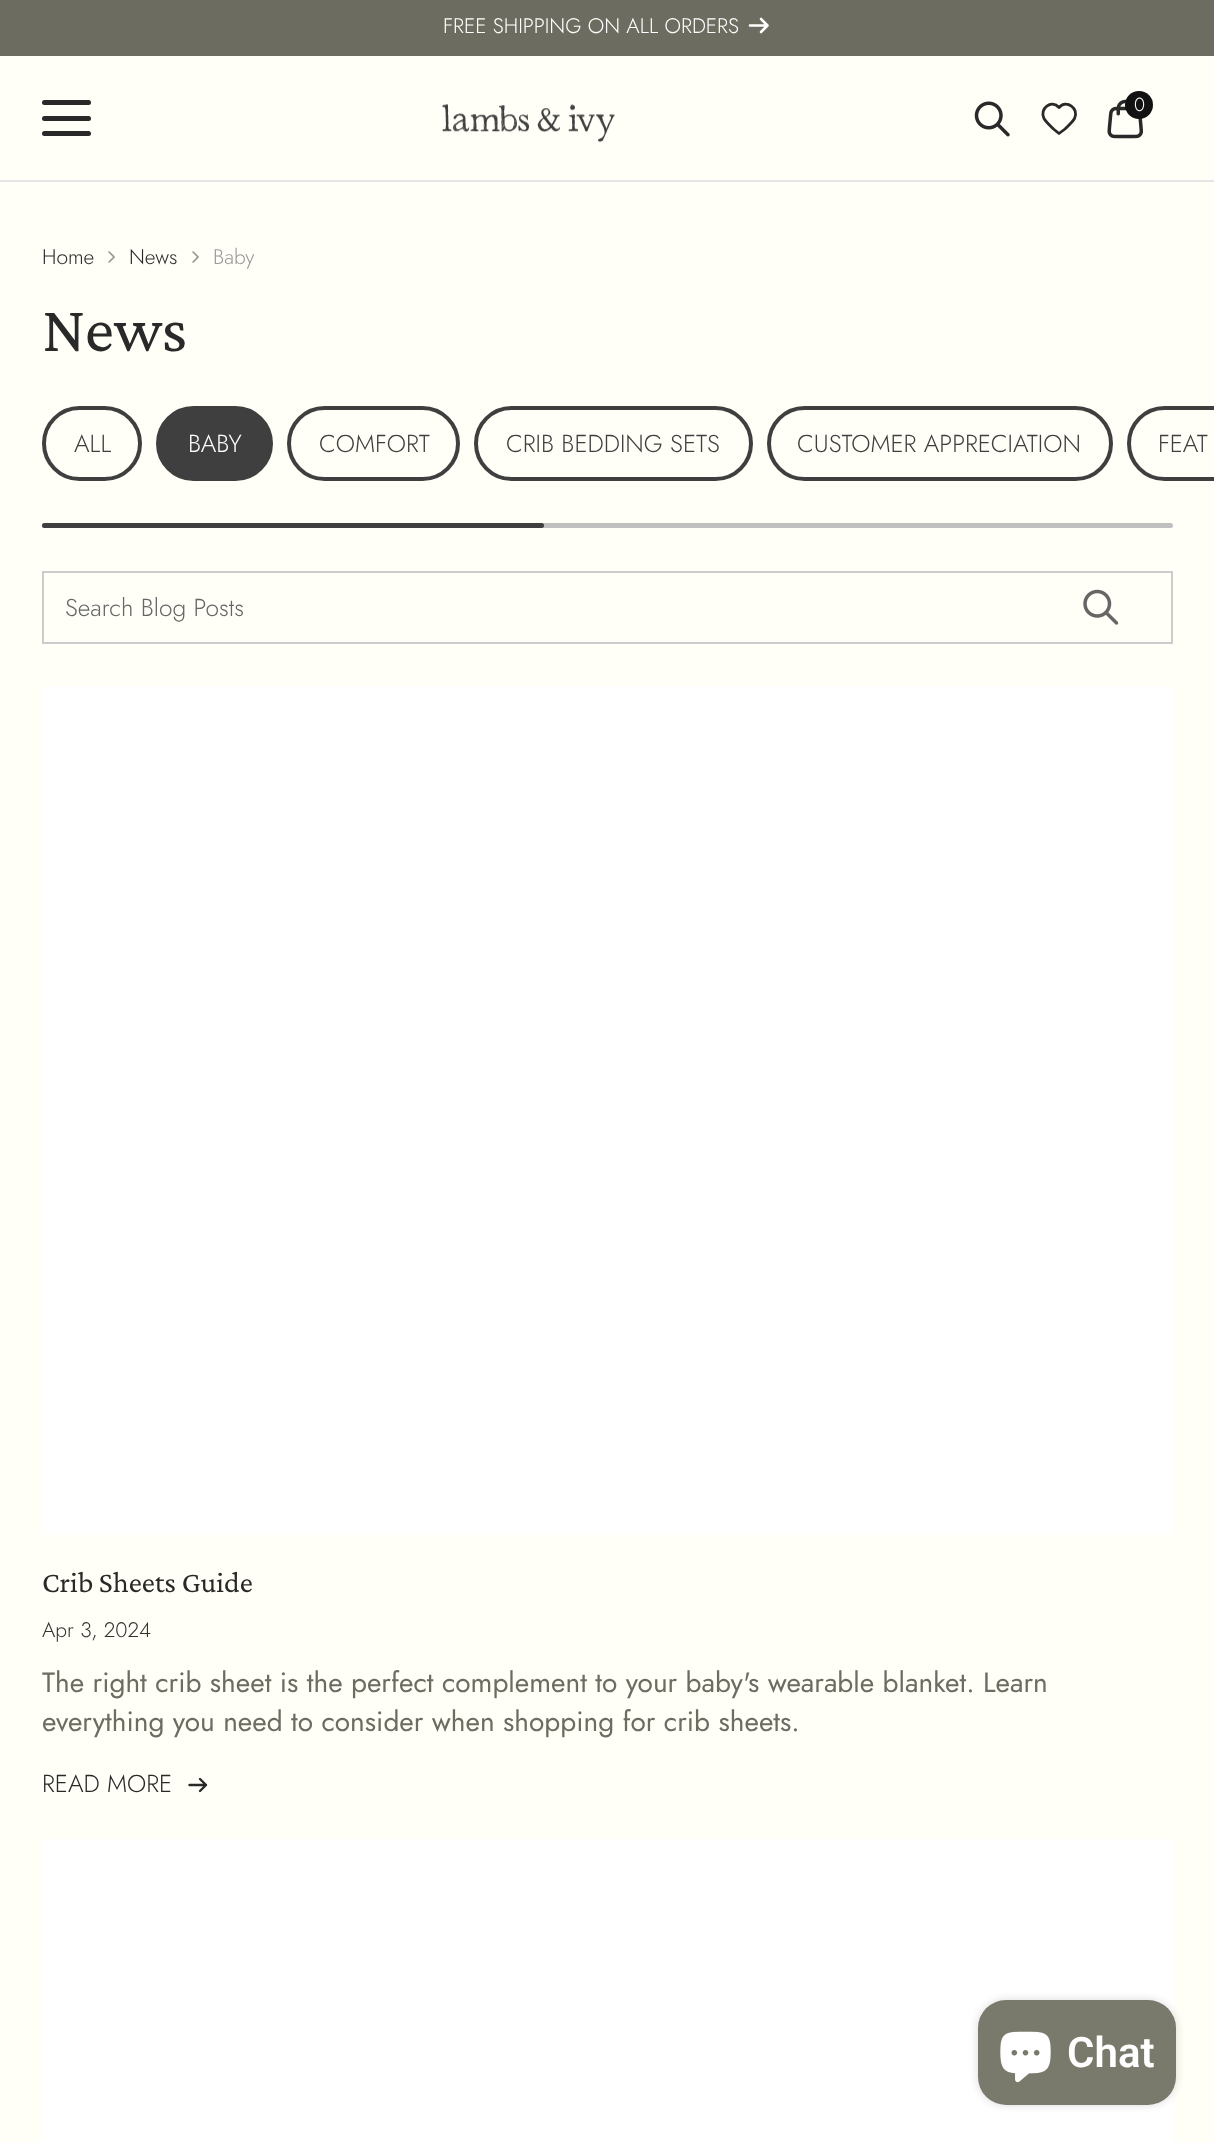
<!DOCTYPE html>
<meta charset="utf-8">
<style>body { margin: 0 } canvas { display: block }</style>
<canvas id="canvas" width="1214" height="2142"></canvas>
<img id="img1" src="images/1.png" hidden>
<img id="img2" src="images/2.png" hidden>
<img id="img3" src="images/3.png" hidden>
<img id="img4" src="images/4.png" hidden>
<img id="img5" src="images/5.png" hidden>
<img id="img6" src="images/6.png" hidden>
<script>
window.onload = function () {
    const canvas = document.getElementById('canvas');
    const context = canvas.getContext('2d');
    context.miterLimit = 4;
    context.fontKerning = 'normal';

    context.fillStyle = 'rgb(255, 255, 248)';
    context.fillRect(0, 0, 1214, 2142);
    context.fillStyle = 'rgb(108, 108, 96)';
    context.fillRect(0, 0, 1214, 56);
    context.beginPath();
    context.moveTo(750, 25.5);
    context.lineTo(767.5, 25.5);
    context.moveTo(767.5, 25.5);
    context.lineTo(761, 19);
    context.moveTo(767.5, 25.5);
    context.lineTo(761, 32);
    context.strokeStyle = 'rgb(255, 255, 255)';
    context.lineWidth = 2.6;
    context.lineCap = 'round';
    context.lineJoin = 'round';
    context.stroke();
    context.fillStyle = 'rgb(229, 229, 229)';
    context.fillRect(0, 180, 1214, 2);
    context.fillStyle = 'rgb(41, 41, 41)';
    context.beginPath();
    context.roundRect(42, 100, 49, 5, 2.5);
    context.fill();
    context.beginPath();
    context.roundRect(42, 116, 49, 5, 2.5);
    context.fill();
    context.beginPath();
    context.roundRect(42, 131, 49, 5, 2.5);
    context.fill();
    context.drawImage(document.getElementById('img1'), 442, 104, 173, 39);
    context.drawImage(document.getElementById('img2'), 974, 101, 36, 36);
    context.beginPath();
    context.moveTo(1059, 107.5);
    context.bezierCurveTo(1051.5, 99, 1039, 108.5, 1044, 118.5);
    context.bezierCurveTo(1046, 122, 1050.5, 126, 1053.5, 129);
    context.lineTo(1059, 133.5);
    context.lineTo(1065, 129);
    context.bezierCurveTo(1068, 126, 1072.5, 122, 1074.5, 118.5);
    context.bezierCurveTo(1079.5, 108.5, 1066.5, 99, 1059, 107.5);
    context.closePath();
    context.strokeStyle = 'rgb(41, 41, 41)';
    context.lineWidth = 2.8;
    context.stroke();
    context.drawImage(document.getElementById('img3'), 1107, 99, 36, 40);
    context.fillStyle = 'rgb(18, 18, 18)';
    context.beginPath();
    context.arc(1139, 105, 14, 0, 2 * Math.PI);
    context.fill();
    context.drawImage(document.getElementById('img4'), 108, 251, 7, 12);
    context.drawImage(document.getElementById('img4'), 192, 251, 7, 12);
    context.beginPath();
    context.roundRect(44, 408, 96, 71, 35.5);
    context.strokeStyle = 'rgb(63, 63, 63)';
    context.lineWidth = 4;
    context.lineJoin = 'miter';
    context.stroke();
    context.fillStyle = 'rgb(63, 63, 63)';
    context.beginPath();
    context.roundRect(158, 408, 113, 71, 35.5);
    context.fill();
    context.stroke();
    context.beginPath();
    context.roundRect(289, 408, 169, 71, 35.5);
    context.stroke();
    context.beginPath();
    context.roundRect(476, 408, 275, 71, 35.5);
    context.stroke();
    context.beginPath();
    context.roundRect(769, 408, 342, 71, 35.5);
    context.stroke();
    context.beginPath();
    context.roundRect(1129, 408, 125, 71, 35.5);
    context.stroke();
    context.fillStyle = 'rgb(192, 192, 192)';
    context.beginPath();
    context.roundRect(42, 523, 1131, 5, 2.5);
    context.fill();
    context.fillStyle = 'rgb(63, 63, 63)';
    context.beginPath();
    context.roundRect(42, 523, 502, 5, 2.5);
    context.fill();
    context.strokeStyle = 'rgb(204, 204, 204)';
    context.lineWidth = 2;
    context.strokeRect(43, 572, 1129, 71);
    context.drawImage(document.getElementById('img5'), 1083, 589, 36, 36);
    context.fillStyle = 'rgb(255, 255, 255)';
    context.fillRect(42, 686, 1131, 849);
    context.beginPath();
    context.moveTo(189.5, 1785);
    context.lineTo(206, 1785);
    context.moveTo(206, 1785);
    context.lineTo(200, 1779);
    context.moveTo(206, 1785);
    context.lineTo(200, 1791);
    context.strokeStyle = 'rgb(41, 41, 41)';
    context.lineWidth = 2.4;
    context.lineJoin = 'round';
    context.stroke();
    context.fillRect(42, 1839, 1131, 303);
    context.fillStyle = 'rgba(0, 0, 0, 0.15)';
    context.filter = 'blur(4.5px)';
    context.beginPath();
    context.roundRect(978, 2000, 198, 105, 28);
    context.fill();
    context.filter = 'none';
    context.fillStyle = 'rgb(122, 122, 108)';
    context.beginPath();
    context.roundRect(978, 2000, 198, 105, 28);
    context.fill();
    context.drawImage(document.getElementById('img6'), 1000, 2031, 51, 52);
    context.font = '300 21px Jost';
    context.fillStyle = 'rgb(255, 255, 255)';
    context.fillText('FREE SHIPPING ON ALL ORDERS', 443, 33);
    context.font = '300 19px Jost';
    context.fillText('0', 1134, 111);
    context.font = '300 21px Jost';
    context.fillStyle = 'rgb(41, 41, 41)';
    context.fillText('Home', 42, 264);
    context.fillText('News', 129, 264);
    context.fillStyle = 'rgb(153, 153, 153)';
    context.fillText('Baby', 213, 264);
    context.letterSpacing = '-0.5px';
    context.font = '66.5px Crimson Pro';
    context.fillStyle = 'rgb(41, 41, 41)';
    context.fillText('News', 42, 351);
    context.letterSpacing = '0px';
    context.font = '300 24.5px Jost';
    context.fillStyle = 'rgb(63, 63, 63)';
    context.fillText('ALL', 74, 452);
    context.fillStyle = 'rgb(255, 255, 255)';
    context.fillText('BABY', 188, 452);
    context.fillStyle = 'rgb(63, 63, 63)';
    context.fillText('COMFORT', 319, 452);
    context.fillText('CRIB BEDDING SETS', 506, 452);
    context.fillText('CUSTOMER APPRECIATION', 797, 452);
    context.fillText('FEAT', 1158, 452);
    context.fillStyle = 'rgb(102, 102, 102)';
    context.fillText('Search Blog Posts', 65, 616);
    context.font = '29.75px Crimson Pro';
    context.fillStyle = 'rgb(41, 41, 41)';
    context.fillText('Crib Sheets Guide', 42, 1592);
    context.font = '300 21px Jost';
    context.fillStyle = 'rgb(51, 51, 51)';
    context.fillText('Apr 3, 2024', 42, 1637);
    context.font = '28px Jost';
    context.fillStyle = 'rgb(108, 108, 96)';
    context.fillText('The right crib sheet is the perfect complement to your baby\'s wearable blanket. Learn', 42, 1692);
    context.fillText('everything you need to consider when shopping for crib sheets.', 42, 1731);
    context.font = '300 24.5px Jost';
    context.fillStyle = 'rgb(41, 41, 41)';
    context.fillText('READ MORE', 42, 1792);
    context.font = '600 42px Roboto';
    context.fillStyle = 'rgb(255, 255, 255)';
    context.fillText('Chat', 1067, 2067);
};
</script>
